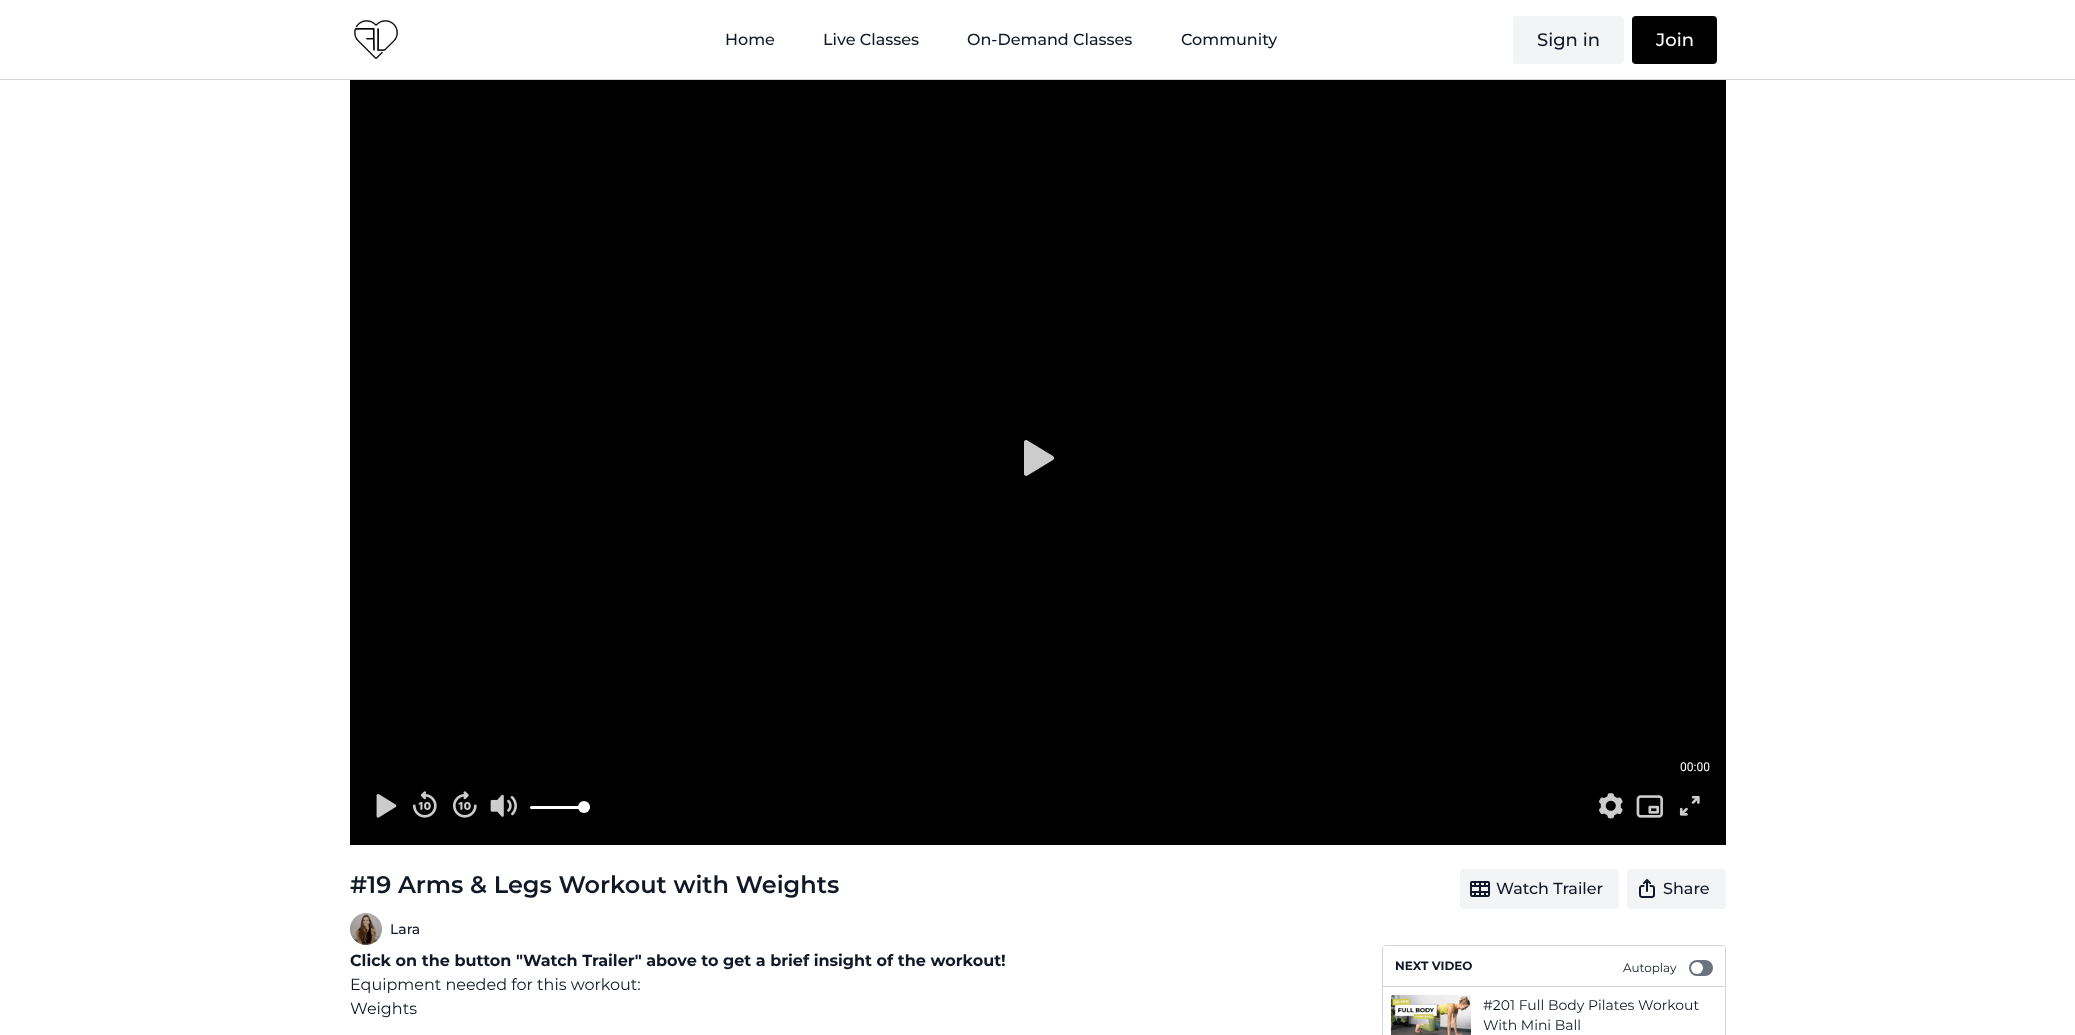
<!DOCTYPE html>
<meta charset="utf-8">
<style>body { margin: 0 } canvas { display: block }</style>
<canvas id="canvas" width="2075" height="1035"></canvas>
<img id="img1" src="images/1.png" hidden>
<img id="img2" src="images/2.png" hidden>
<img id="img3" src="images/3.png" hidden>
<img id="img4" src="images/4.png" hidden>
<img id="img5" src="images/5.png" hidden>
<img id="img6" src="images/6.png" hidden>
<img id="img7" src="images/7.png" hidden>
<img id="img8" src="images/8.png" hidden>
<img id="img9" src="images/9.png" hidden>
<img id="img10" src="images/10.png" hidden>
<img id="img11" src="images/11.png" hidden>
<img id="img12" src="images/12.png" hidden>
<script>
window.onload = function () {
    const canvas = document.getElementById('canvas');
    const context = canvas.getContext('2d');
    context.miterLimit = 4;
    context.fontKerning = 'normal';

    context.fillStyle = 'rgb(255, 255, 255)';
    context.fillRect(0, 0, 2075, 1035);
    context.fillStyle = 'rgb(209, 213, 219)';
    context.fillRect(0, 79, 2075, 1);
    context.drawImage(document.getElementById('img1'), 353, 19, 46, 41);
    context.fillStyle = 'rgb(243, 244, 246)';
    context.beginPath();
    context.roundRect(1513, 16, 111, 48, 4);
    context.fill();
    context.fillStyle = 'rgb(0, 0, 0)';
    context.beginPath();
    context.roundRect(1632, 16, 85, 48, 4);
    context.fill();
    context.fillRect(350, 80, 1376, 765);
    context.fillStyle = 'rgb(204, 204, 204)';
    context.beginPath();
    context.moveTo(1027.5, 440.5);
    context.bezierCurveTo(1026, 439.5, 1024, 440.5, 1024, 442);
    context.lineTo(1024, 474);
    context.bezierCurveTo(1024, 475.5, 1026, 476.5, 1027.5, 475.5);
    context.lineTo(1053, 460);
    context.bezierCurveTo(1054.5, 459, 1054.5, 457, 1053, 456);
    context.closePath();
    context.fill();
    context.drawImage(document.getElementById('img2'), 376, 794, 21, 24);
    context.drawImage(document.getElementById('img3'), 413, 791, 24, 27);
    context.drawImage(document.getElementById('img4'), 453, 791, 24, 27);
    context.drawImage(document.getElementById('img5'), 490, 794, 27, 23);
    context.fillStyle = 'rgb(255, 255, 255)';
    context.beginPath();
    context.roundRect(530, 806, 60, 3, 1.5);
    context.fill();
    context.beginPath();
    context.arc(584, 807, 6, 0, 2 * Math.PI);
    context.fill();
    context.drawImage(document.getElementById('img6'), 1599, 793, 24, 26);
    context.drawImage(document.getElementById('img7'), 1636, 795, 27, 23);
    context.drawImage(document.getElementById('img8'), 1679, 795, 21, 21);
    context.fillStyle = 'rgb(243, 244, 246)';
    context.beginPath();
    context.roundRect(1460, 869, 159, 40, 4);
    context.fill();
    context.drawImage(document.getElementById('img9'), 1470, 881, 20, 16);
    context.beginPath();
    context.roundRect(1627, 869, 99, 40, 4);
    context.fill();
    context.drawImage(document.getElementById('img10'), 1639, 879, 16, 19);
    context.drawImage(document.getElementById('img11'), 350, 913, 32, 32);
    context.beginPath();
    context.roundRect(1382.5, 945.5, 343, 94, 3.5);
    context.strokeStyle = 'rgb(209, 213, 219)';
    context.stroke();
    context.fillStyle = 'rgb(255, 255, 255)';
    context.beginPath();
    context.roundRect(1383, 946, 342, 40, [3, 3, 0, 0]);
    context.fill();
    context.fillStyle = 'rgb(209, 213, 219)';
    context.fillRect(1383, 986, 342, 1);
    context.fillStyle = 'rgb(107, 114, 128)';
    context.beginPath();
    context.roundRect(1689, 960, 24, 16, 8);
    context.fill();
    context.fillStyle = 'rgb(255, 255, 255)';
    context.beginPath();
    context.arc(1697, 968, 6, 0, 2 * Math.PI);
    context.fill();
    context.drawImage(document.getElementById('img12'), 1391, 995, 80, 40);
    context.font = '500 16px Montserrat';
    context.fillStyle = 'rgb(17, 24, 39)';
    context.fillText('Home', 725, 45);
    context.fillText('Live Classes', 823, 45);
    context.fillText('On-Demand Classes', 967, 45);
    context.fillText('Community', 1181, 45);
    context.font = '500 18px Montserrat';
    context.fillText('Sign in', 1537, 46);
    context.fillStyle = 'rgb(255, 255, 255)';
    context.fillText('Join', 1656, 46);
    context.font = '12px Roboto';
    context.fillText('00:00', 1680, 771);
    context.font = '600 24px Montserrat';
    context.fillStyle = 'rgb(17, 24, 39)';
    context.fillText('#19 Arms & Legs Workout with Weights', 350, 893);
    context.font = '500 16px Montserrat';
    context.fillText('Watch Trailer', 1496, 894);
    context.fillText('Share', 1663, 894);
    context.font = '500 14px Montserrat';
    context.fillText('Lara', 390, 934);
    context.font = 'bold 16px Montserrat';
    context.fillText('Click on the button "Watch Trailer" above to get a brief insight of the workout!', 350, 966);
    context.font = '16px Montserrat';
    context.fillText('Equipment needed for this workout:', 350, 990);
    context.fillText('Weights', 350, 1014);
    context.font = 'bold 12px Montserrat';
    context.fillText('NEXT VIDEO', 1395, 970);
    context.font = '12px Montserrat';
    context.fillText('Autoplay', 1623, 972);
    context.font = '14px Montserrat';
    context.fillText('#201 Full Body Pilates Workout', 1483, 1010);
    context.fillText('With Mini Ball', 1483, 1030);
};
</script>
